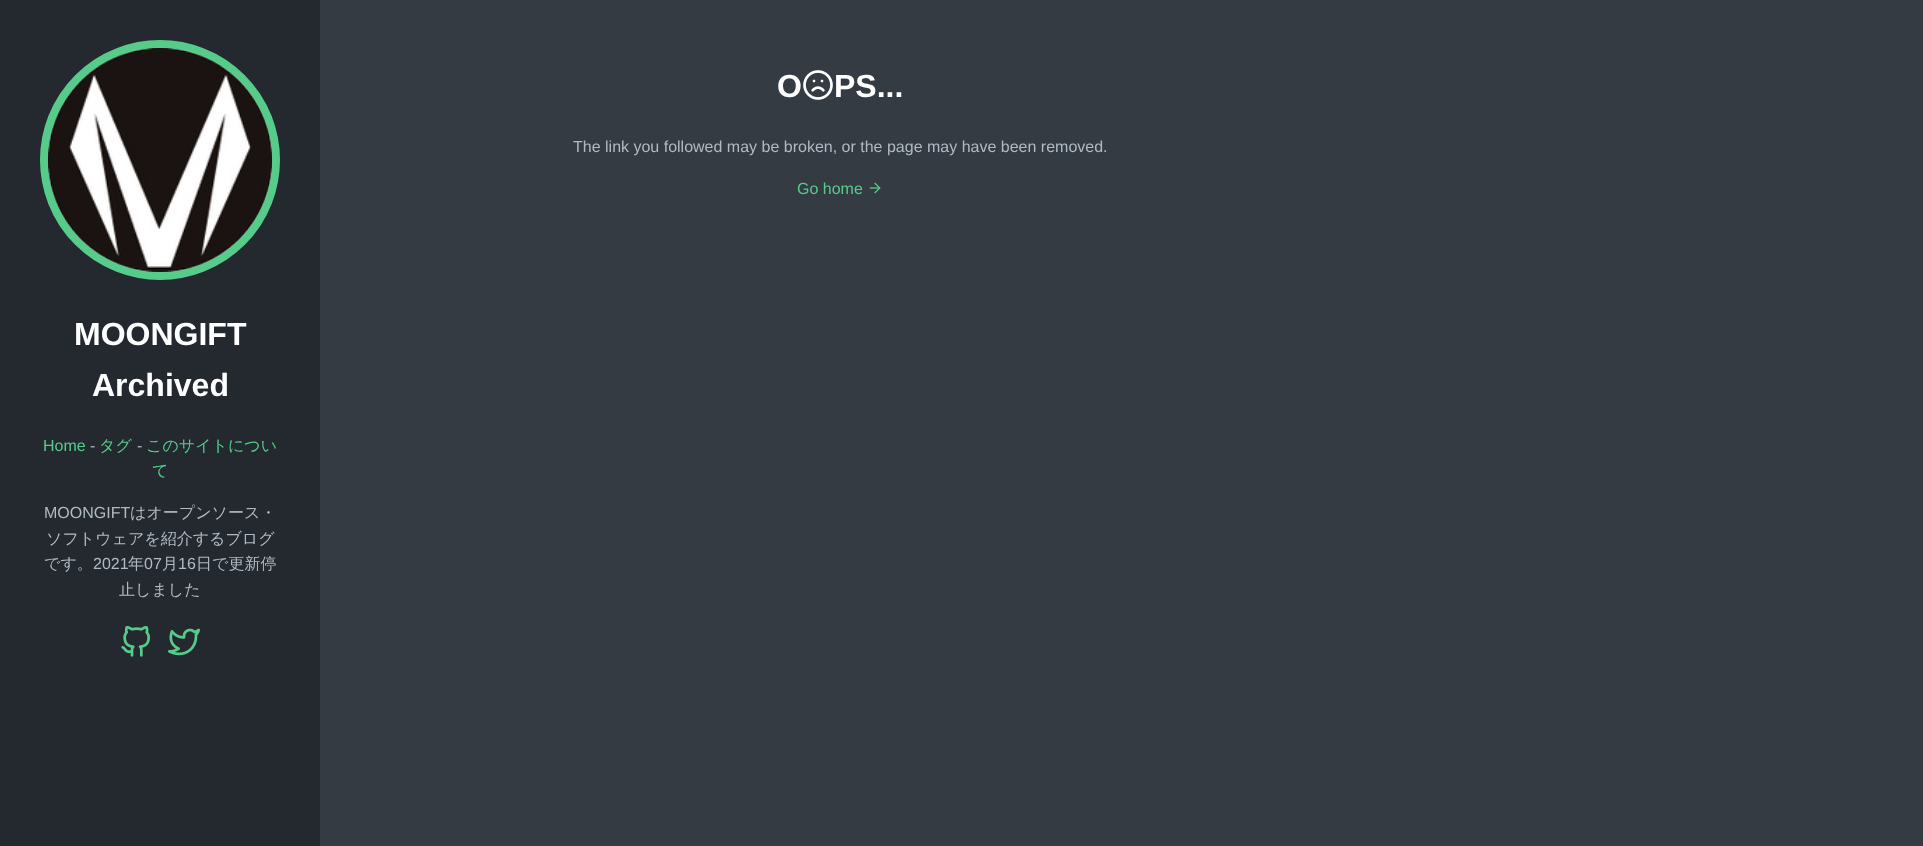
<!DOCTYPE html>
<meta charset="utf-8">
<style>body { margin: 0 } canvas { display: block }</style>
<canvas id="canvas" width="1923" height="846"></canvas>
<img id="img1" src="images/1.png" hidden>
<img id="img2" src="images/2.png" hidden>
<img id="img3" src="images/3.png" hidden>
<img id="img4" src="images/4.png" hidden>
<img id="img5" src="images/5.png" hidden>
<script>
window.onload = function () {
    const canvas = document.getElementById('canvas');
    const context = canvas.getContext('2d');
    context.miterLimit = 4;
    context.fontKerning = 'normal';

    context.fillStyle = 'rgb(53, 59, 67)';
    context.fillRect(0, 0, 1923, 846);
    context.drawImage(document.getElementById('img1'), 803, 70, 30, 30);
    context.drawImage(document.getElementById('img2'), 869, 182, 12, 12);
    context.fillStyle = 'rgb(36, 41, 48)';
    context.fillRect(0, 0, 320, 846);
    context.beginPath();
    context.arc(160, 160, 116, 0, 2 * Math.PI);
    context.strokeStyle = 'rgb(87, 204, 138)';
    context.lineWidth = 8;
    context.stroke();
    context.drawImage(document.getElementById('img3'), 48, 48, 224, 224);
    context.drawImage(document.getElementById('img4'), 121, 626, 29, 31);
    context.drawImage(document.getElementById('img5'), 168, 628, 32, 28);
    context.font = 'bold 32px Liberation Sans';
    context.fillStyle = 'rgb(255, 255, 255)';
    context.fillText('O', 777, 97);
    context.fillText('PS...', 834, 97);
    context.font = '16px Liberation Sans';
    context.fillStyle = 'rgb(175, 186, 196)';
    context.fillText('The link you followed may be broken, or the page may have been removed.', 573, 152);
    context.fillStyle = 'rgb(87, 204, 138)';
    context.fillText('Go home', 797, 194);
    context.font = 'bold 32px Liberation Sans';
    context.fillStyle = 'rgb(255, 255, 255)';
    context.fillText('MOONGIFT', 74, 345);
    context.fillText('Archived', 92, 396);
    context.font = '16px Liberation Sans';
    context.fillStyle = 'rgb(87, 204, 138)';
    context.fillText('Home', 43, 451);
    context.fillStyle = 'rgb(175, 186, 196)';
    context.fillText('-', 90, 451);
    context.font = '500 16px WenQuanYi Zen Hei';
    context.fillStyle = 'rgb(87, 204, 138)';
    context.fillText('タグ', 99, 451);
    context.font = '16px Liberation Sans';
    context.fillStyle = 'rgb(175, 186, 196)';
    context.fillText('-', 137, 451);
    context.font = '500 16px WenQuanYi Zen Hei';
    context.fillStyle = 'rgb(87, 204, 138)';
    context.fillText('このサイトについ', 146, 451);
    context.fillText('て', 152, 476);
    context.font = '16px Liberation Sans';
    context.fillStyle = 'rgb(175, 186, 196)';
    context.fillText('MOONGIFT', 44, 518);
    context.font = '500 16px WenQuanYi Zen Hei';
    context.fillText('はオープンソース・', 130, 518);
    context.fillText('ソフトウェアを紹介するブログ', 46, 544);
    context.fillText('です。', 44, 569);
    context.font = '16px Liberation Sans';
    context.fillText('2021', 93, 569);
    context.font = '500 16px WenQuanYi Zen Hei';
    context.fillText('年', 128, 569);
    context.font = '16px Liberation Sans';
    context.fillText('07', 144, 569);
    context.font = '500 16px WenQuanYi Zen Hei';
    context.fillText('月', 162, 569);
    context.font = '16px Liberation Sans';
    context.fillText('16', 178, 569);
    context.font = '500 16px WenQuanYi Zen Hei';
    context.fillText('日で更新停', 196, 569);
    context.fillText('止しました', 119, 595);
};
</script>
